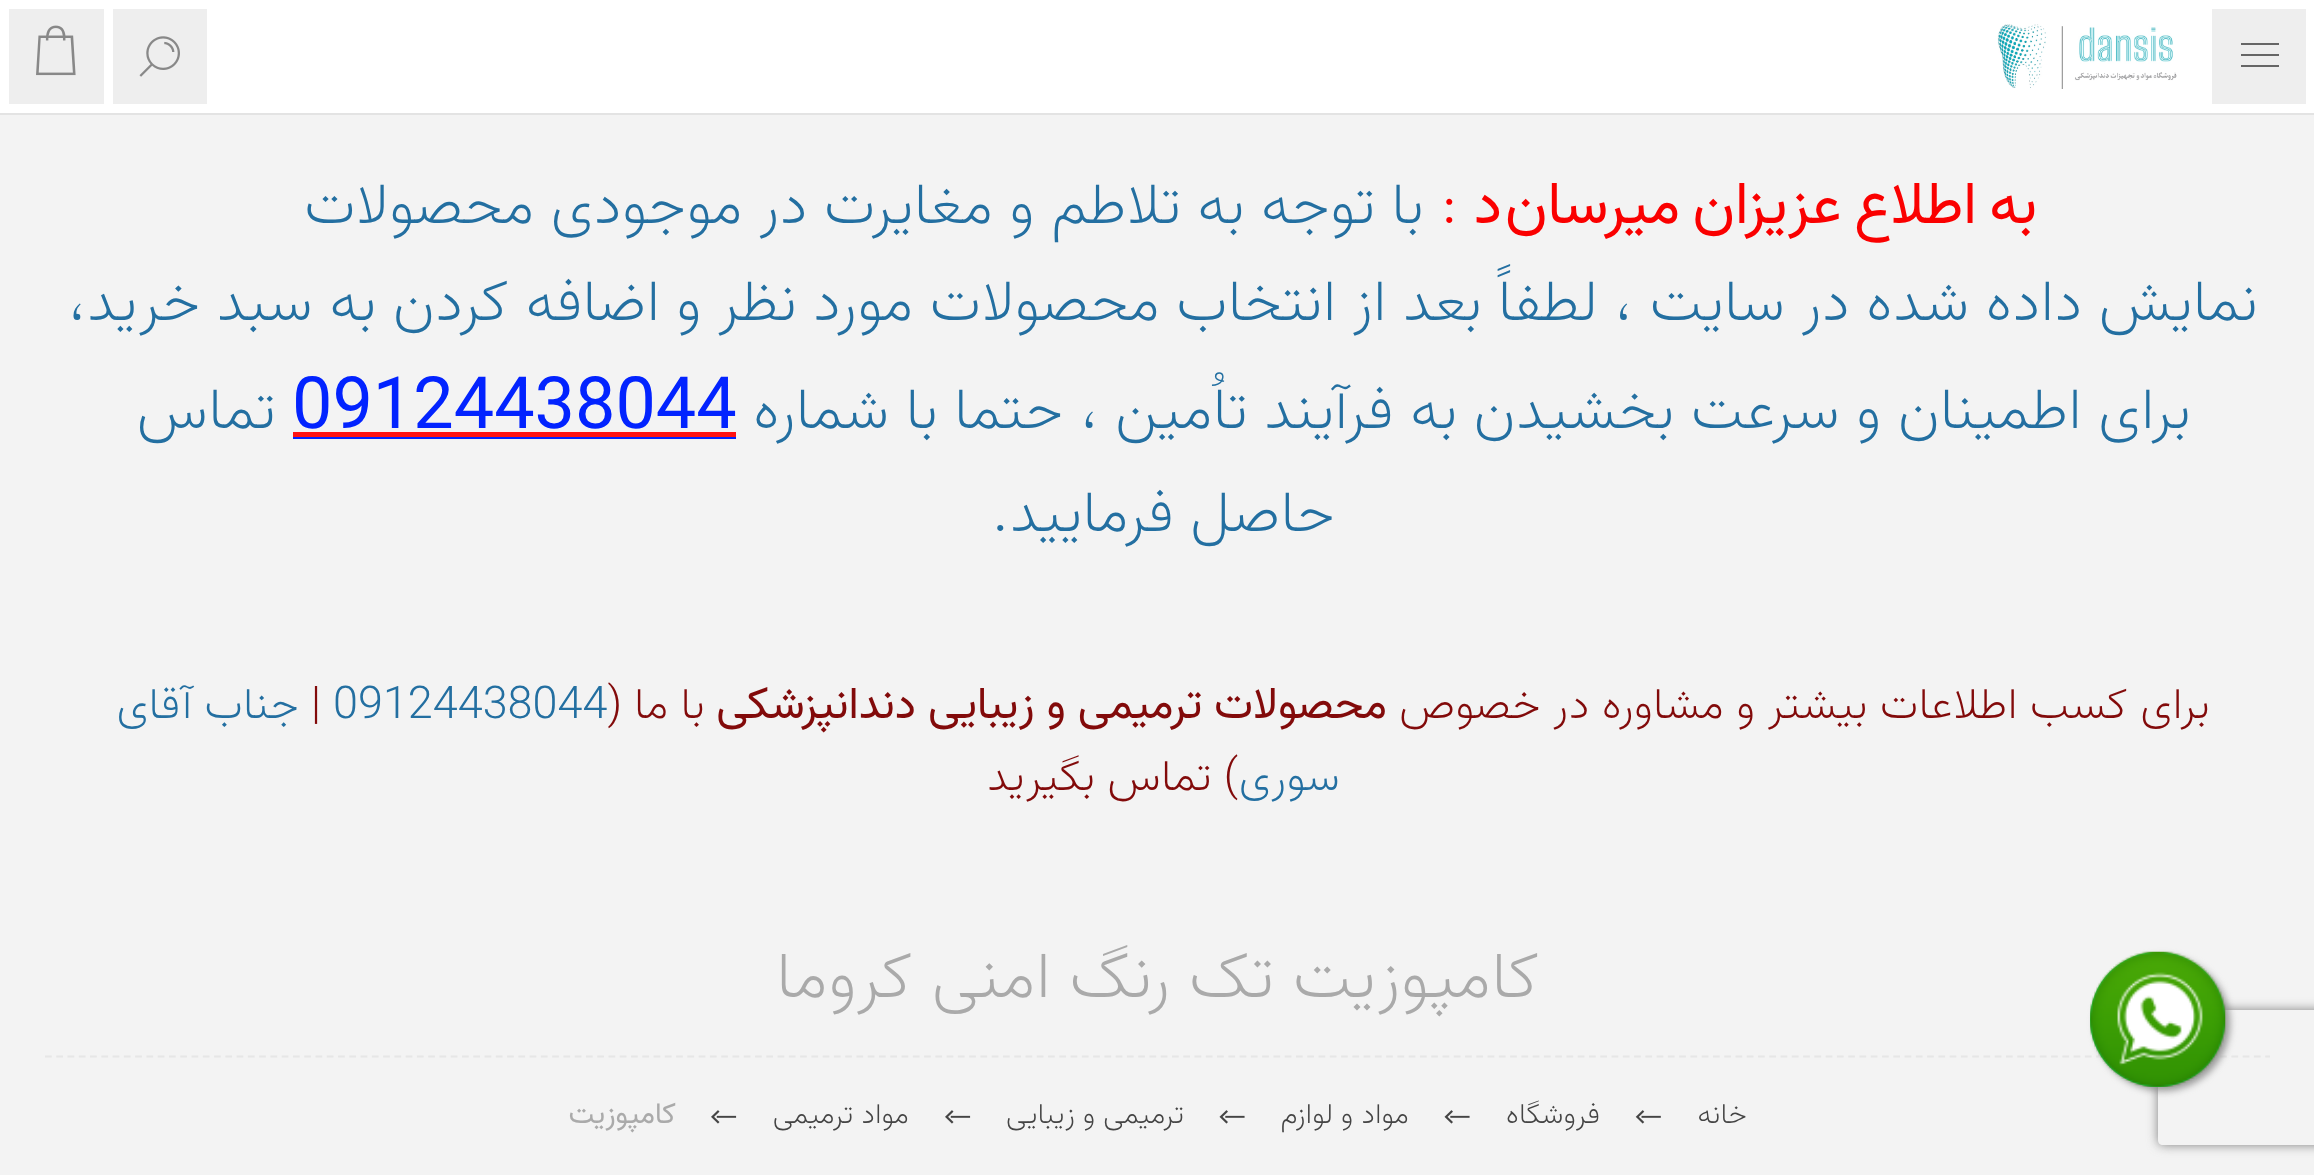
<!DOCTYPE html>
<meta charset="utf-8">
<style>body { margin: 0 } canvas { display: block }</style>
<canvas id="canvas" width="2314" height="1175"></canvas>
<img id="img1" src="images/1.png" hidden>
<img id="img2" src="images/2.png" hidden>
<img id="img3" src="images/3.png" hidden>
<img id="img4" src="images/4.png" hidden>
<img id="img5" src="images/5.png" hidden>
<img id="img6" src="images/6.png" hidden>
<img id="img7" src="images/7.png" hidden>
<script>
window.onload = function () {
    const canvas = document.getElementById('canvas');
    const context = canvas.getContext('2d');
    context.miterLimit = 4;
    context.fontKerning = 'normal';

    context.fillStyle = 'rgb(243, 243, 243)';
    context.fillRect(0, 0, 2314, 1175);
    context.fillStyle = 'rgb(227, 227, 227)';
    context.fillRect(0, 113, 2314, 2);
    context.fillStyle = 'rgb(255, 255, 255)';
    context.fillRect(113, 0, 2090, 113);
    context.drawImage(document.getElementById('img1'), 1997, 24, 180, 65);
    context.fillStyle = 'rgb(238, 238, 238)';
    context.fillRect(113, 9, 94, 95);
    context.drawImage(document.getElementById('img2'), 139, 36, 41, 41);
    context.beginPath();
    context.rect(2207.5, 4.5, 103, 104);
    context.fill();
    context.strokeStyle = 'rgb(255, 255, 255)';
    context.lineWidth = 9;
    context.stroke();
    context.fillStyle = 'rgb(102, 102, 102)';
    context.fillRect(2241, 43, 38, 2);
    context.fillRect(2241, 54, 38, 2);
    context.fillRect(2241, 65, 38, 2);
    context.fillStyle = 'rgb(238, 238, 238)';
    context.beginPath();
    context.rect(4.5, 4.5, 104, 104);
    context.fill();
    context.stroke();
    context.drawImage(document.getElementById('img3'), 36, 25, 40, 51);
    context.fillStyle = 'rgb(2, 35, 255)';
    context.fillRect(293, 437, 443, 2);
    context.fillStyle = 'rgb(255, 19, 19)';
    context.fillRect(293, 432, 443, 5);
    context.beginPath();
    context.moveTo(45, 1056.5);
    context.lineTo(2270, 1056.5);
    context.strokeStyle = 'rgb(230, 230, 230)';
    context.lineWidth = 2.2;
    context.setLineDash([6.75, 4.52]);
    context.stroke();
    context.drawImage(document.getElementById('img4'), 1635, 1110, 26, 14);
    context.drawImage(document.getElementById('img5'), 1444, 1110, 26, 14);
    context.drawImage(document.getElementById('img5'), 1219, 1110, 26, 14);
    context.drawImage(document.getElementById('img6'), 945, 1110, 26, 14);
    context.drawImage(document.getElementById('img6'), 711, 1110, 26, 14);
    context.fillStyle = 'rgb(153, 153, 153)';
    context.filter = 'blur(3.5px)';
    context.beginPath();
    context.roundRect(2095, 956, 135, 135, 67.5);
    context.fill();
    context.filter = 'none';
    context.save();
    context.beginPath();
    context.moveTo(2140, 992);
    context.lineTo(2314, 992);
    context.lineTo(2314, 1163);
    context.lineTo(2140, 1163);
    context.closePath();
    context.moveTo(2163, 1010);
    context.lineTo(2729, 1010);
    context.bezierCurveTo(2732, 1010, 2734, 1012, 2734, 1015);
    context.lineTo(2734, 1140);
    context.bezierCurveTo(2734, 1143, 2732, 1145, 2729, 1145);
    context.lineTo(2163, 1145);
    context.bezierCurveTo(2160, 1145, 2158, 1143, 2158, 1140);
    context.lineTo(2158, 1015);
    context.bezierCurveTo(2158, 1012, 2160, 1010, 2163, 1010);
    context.closePath();
    context.clip('evenodd');
    context.fillStyle = 'rgb(128, 128, 128)';
    context.filter = 'blur(5.5px)';
    context.beginPath();
    context.roundRect(2158, 1010, 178, 135, 5);
    context.fill();
    context.filter = 'none';
    context.restore();
    context.fillStyle = 'rgb(37, 211, 102)';
    context.beginPath();
    context.arc(2157.5, 1019.5, 67.5, 0, 2 * Math.PI);
    context.fill();
    context.drawImage(document.getElementById('img7'), 2090, 951, 136, 136);
    context.wordSpacing = '-3.5px';
    context.direction = 'rtl';
    context.font = '60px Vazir';
    context.fillStyle = 'rgb(250, 0, 0)';
    context.fillText('به اطلاع عزیزان میرسان', 2037, 223);
    context.wordSpacing = '0px';
    context.fillText('د', 1502, 223);
    context.direction = 'ltr';
    context.font = '100 60px Vazir';
    context.fillText(':', 1440, 223);
    context.direction = 'rtl';
    context.fillStyle = 'rgb(35, 111, 161)';
    context.fillText('با توجه به تلاطم و مغایرت در موجودی محصولات', 1424, 223);
    context.fillText('نمایش داده شده در سایت ، لطفاً بعد از انتخاب محصولات مورد نظر و اضافه کردن به سبد خرید،', 2258, 320);
    context.fillText('برای اطمینان و سرعت بخشیدن به فرآیند تاُمین ، حتما با شماره', 2191, 428);
    context.direction = 'ltr';
    context.font = '72px Vazir';
    context.fillStyle = 'rgb(2, 35, 255)';
    context.fillText('09124438044', 292, 428);
    context.direction = 'rtl';
    context.font = '100 60px Vazir';
    context.fillStyle = 'rgb(35, 111, 161)';
    context.fillText('تماس', 276, 428);
    context.fillText('حاصل فرمایید.', 1335, 531);
    context.font = '100 45px Vazir';
    context.fillStyle = 'rgb(130, 10, 10)';
    context.fillText('برای کسب اطلاعات بیشتر و مشاوره در خصوص', 2210, 718);
    context.font = '45px Vazir';
    context.fillText('محصولات ترمیمی و زیبایی دندانپزشکی', 1387, 718);
    context.font = '100 45px Vazir';
    context.fillText('با ما (', 705, 718);
    context.direction = 'ltr';
    context.fillStyle = 'rgb(35, 111, 161)';
    context.fillText('09124438044', 333, 718);
    context.fillStyle = 'rgb(130, 10, 10)';
    context.fillText('|', 311, 718);
    context.direction = 'rtl';
    context.fillStyle = 'rgb(35, 111, 161)';
    context.fillText('جناب آقای', 299, 718);
    context.fillText('سوری', 1340, 790);
    context.fillStyle = 'rgb(130, 10, 10)';
    context.fillText(') تماس بگیرید', 1238, 790);
    context.font = '100 67.5px Vazir';
    context.fillStyle = 'rgb(170, 170, 170)';
    context.fillText('کامپوزیت تک رنگ امنی کروما', 1540, 997);
    context.font = '100 29.25px Vazir';
    context.fillStyle = 'rgb(68, 68, 68)';
    context.fillText('خانه', 1747, 1123);
    context.fillText('فروشگاه', 1600, 1123);
    context.fillText('مواد و لوازم', 1409, 1123);
    context.fillText('ترمیمی و زیبایی', 1184, 1123);
    context.fillText('مواد ترمیمی', 909, 1123);
    context.font = '29.25px Vazir';
    context.fillStyle = 'rgb(170, 170, 170)';
    context.fillText('کامپوزیت', 676, 1123);
};
</script>
